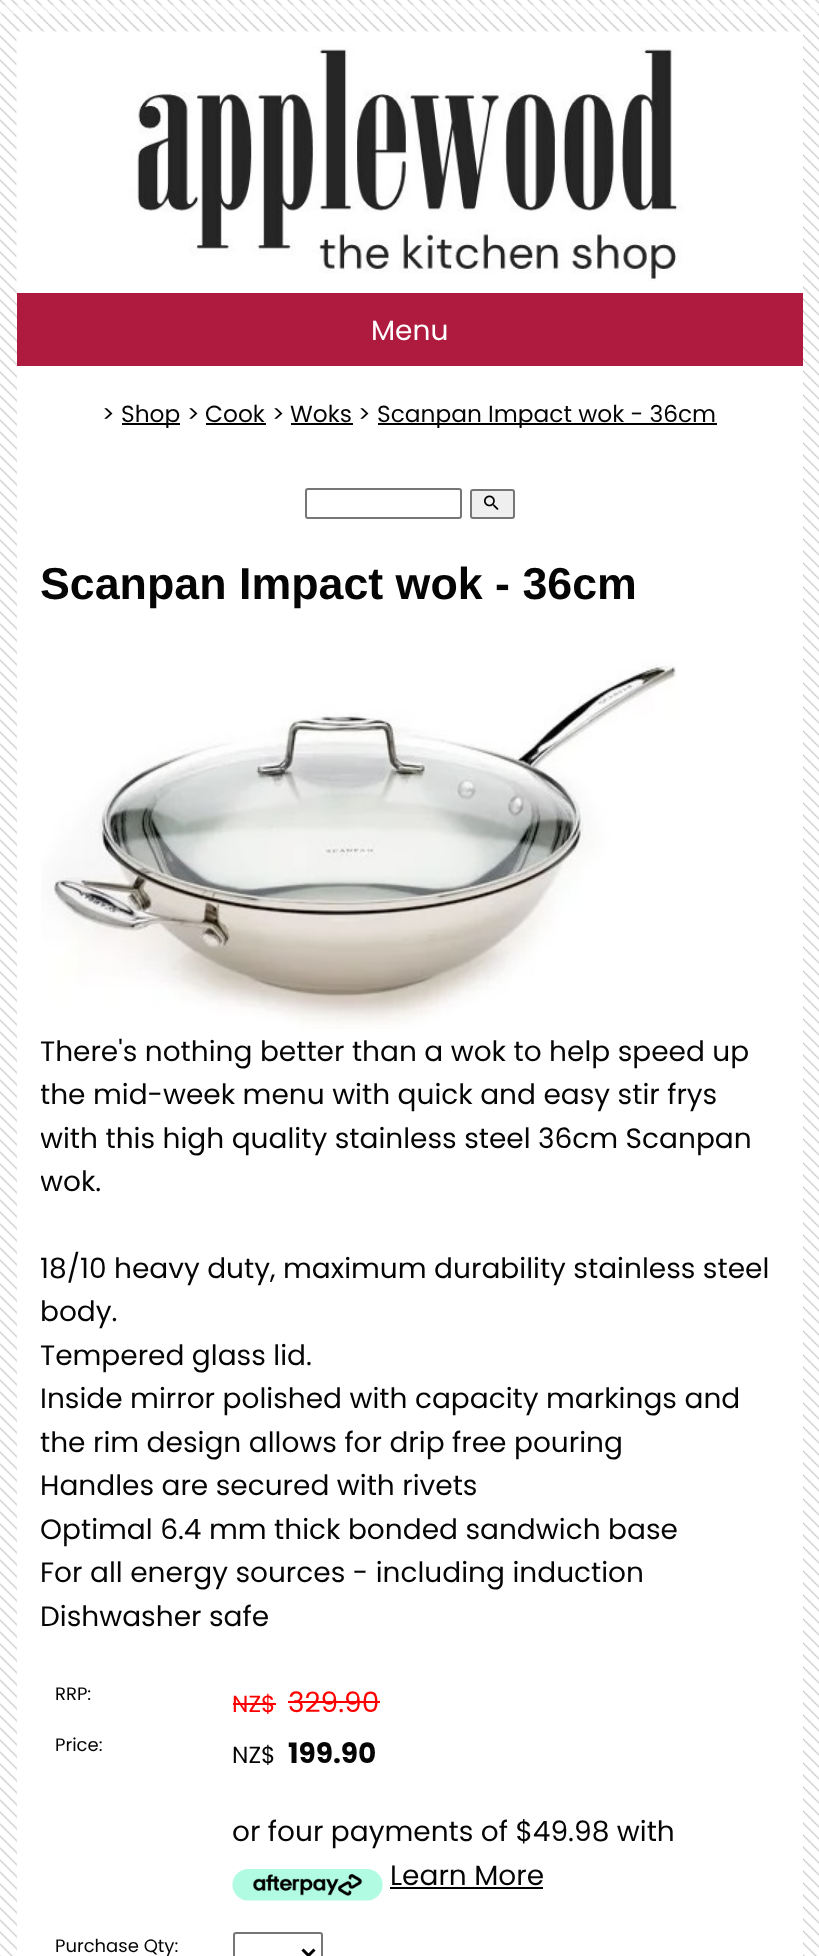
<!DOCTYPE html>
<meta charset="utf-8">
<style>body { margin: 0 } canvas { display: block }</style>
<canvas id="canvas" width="819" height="1956"></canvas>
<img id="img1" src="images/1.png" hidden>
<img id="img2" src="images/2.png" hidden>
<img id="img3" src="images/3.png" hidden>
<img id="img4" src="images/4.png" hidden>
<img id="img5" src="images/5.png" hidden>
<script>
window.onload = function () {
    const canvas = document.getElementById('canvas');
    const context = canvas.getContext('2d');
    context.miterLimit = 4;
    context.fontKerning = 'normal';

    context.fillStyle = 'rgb(255, 255, 255)';
    context.fillRect(0, 0, 819, 1956);
    context.drawImage(document.getElementById('img1'), 0, 0, 819, 1956);
    context.fillStyle = 'rgba(255, 255, 255, 0.5)';
    context.fillRect(0, 5, 819, 9);
    context.fillStyle = 'rgb(255, 255, 255)';
    context.fillRect(17, 32, 786, 261);
    context.drawImage(document.getElementById('img2'), 16, 31, 785, 262);
    context.fillStyle = 'rgb(175, 27, 63)';
    context.fillRect(17, 293, 786, 73);
    context.fillStyle = 'rgb(255, 255, 255)';
    context.fillRect(17, 366, 786, 1590);
    context.fillStyle = 'rgb(2, 2, 2)';
    context.fillRect(122, 423, 58, 2);
    context.fillRect(206, 423, 60, 2);
    context.fillRect(291, 423, 62, 2);
    context.fillRect(378, 423, 339, 2);
    context.beginPath();
    context.roundRect(306, 489, 155, 29, 2);
    context.strokeStyle = 'rgb(118, 118, 118)';
    context.lineWidth = 2;
    context.stroke();
    context.fillStyle = 'rgb(239, 239, 239)';
    context.beginPath();
    context.roundRect(471, 490, 43, 28, 2);
    context.fill();
    context.stroke();
    context.drawImage(document.getElementById('img3'), 484, 495, 15, 15);
    context.drawImage(document.getElementById('img4'), 41, 660, 636, 369);
    context.fillStyle = 'rgb(255, 0, 0)';
    context.fillRect(233, 1703, 43, 2);
    context.fillRect(288, 1701, 92, 2);
    context.drawImage(document.getElementById('img5'), 232, 1869, 151, 32);
    context.fillStyle = 'rgb(2, 2, 2)';
    context.fillRect(390, 1887, 153, 2);
    context.beginPath();
    context.roundRect(234, 1933, 88, 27, 2);
    context.stroke();
    context.beginPath();
    context.moveTo(302.5, 1949.5);
    context.lineTo(308.5, 1955.5);
    context.lineTo(314.5, 1949.5);
    context.strokeStyle = 'rgb(0, 0, 0)';
    context.lineWidth = 3;
    context.stroke();
    context.font = '28px Poppins';
    context.fillStyle = 'rgb(255, 255, 255)';
    context.fillText('Menu', 371, 340);
    context.font = '23.3px Poppins';
    context.fillStyle = 'rgb(5, 5, 5)';
    context.fillText('>', 102, 422);
    context.fillText('Shop', 121, 422);
    context.fillText('>', 187, 422);
    context.fillText('Cook', 205, 422);
    context.fillText('>', 272, 422);
    context.fillText('Woks', 290, 422);
    context.fillText('>', 358, 422);
    context.fillText('Scanpan Impact wok - 36cm', 377, 422);
    context.font = 'bold 44.75px Liberation Sans';
    context.fillText('Scanpan Impact wok - 36cm', 40, 599);
    context.font = '28px Poppins';
    context.fillText('There\'s nothing better than a wok to help speed up', 40, 1061);
    context.save();
    context.beginPath();
    context.rect(41, 645, 738, 573);
    context.clip();
    context.fillText('the mid-week menu with quick and easy stir frys', 40, 1104);
    context.fillText('with this high quality stainless steel 36cm Scanpan', 40, 1148);
    context.fillText('wok.', 40, 1191);
    context.restore();
    context.fillText('18/10 heavy duty, maximum durability stainless steel', 40, 1278);
    context.fillText('body.', 40, 1321);
    context.fillText('Tempered glass lid.', 40, 1365);
    context.fillText('Inside mirror polished with capacity markings and', 40, 1408);
    context.fillText('the rim design allows for drip free pouring', 40, 1452);
    context.fillText('Handles are secured with rivets', 40, 1495);
    context.fillText('Optimal 6.4 mm thick bonded sandwich base', 40, 1539);
    context.fillText('For all energy sources - including induction', 40, 1582);
    context.fillText('Dishwasher safe', 40, 1626);
    context.font = '18px Poppins';
    context.fillText('RRP:', 55, 1700);
    context.font = '23.3px Poppins';
    context.fillStyle = 'rgb(255, 0, 0)';
    context.fillText('NZ$', 232, 1712);
    context.font = '28px Poppins';
    context.fillText('329.90', 288, 1712);
    context.font = '18px Poppins';
    context.fillStyle = 'rgb(5, 5, 5)';
    context.fillText('Price:', 55, 1751);
    context.font = '23.3px Poppins';
    context.fillText('NZ$', 232, 1763);
    context.font = 'bold 28px Poppins';
    context.fillText('199.90', 288, 1763);
    context.font = '28px Poppins';
    context.fillText('or four payments of $49.98 with', 232, 1841);
    context.fillText('Learn More', 390, 1885);
    context.font = '18px Poppins';
    context.fillText('Purchase Qty:', 55, 1952);
};
</script>
